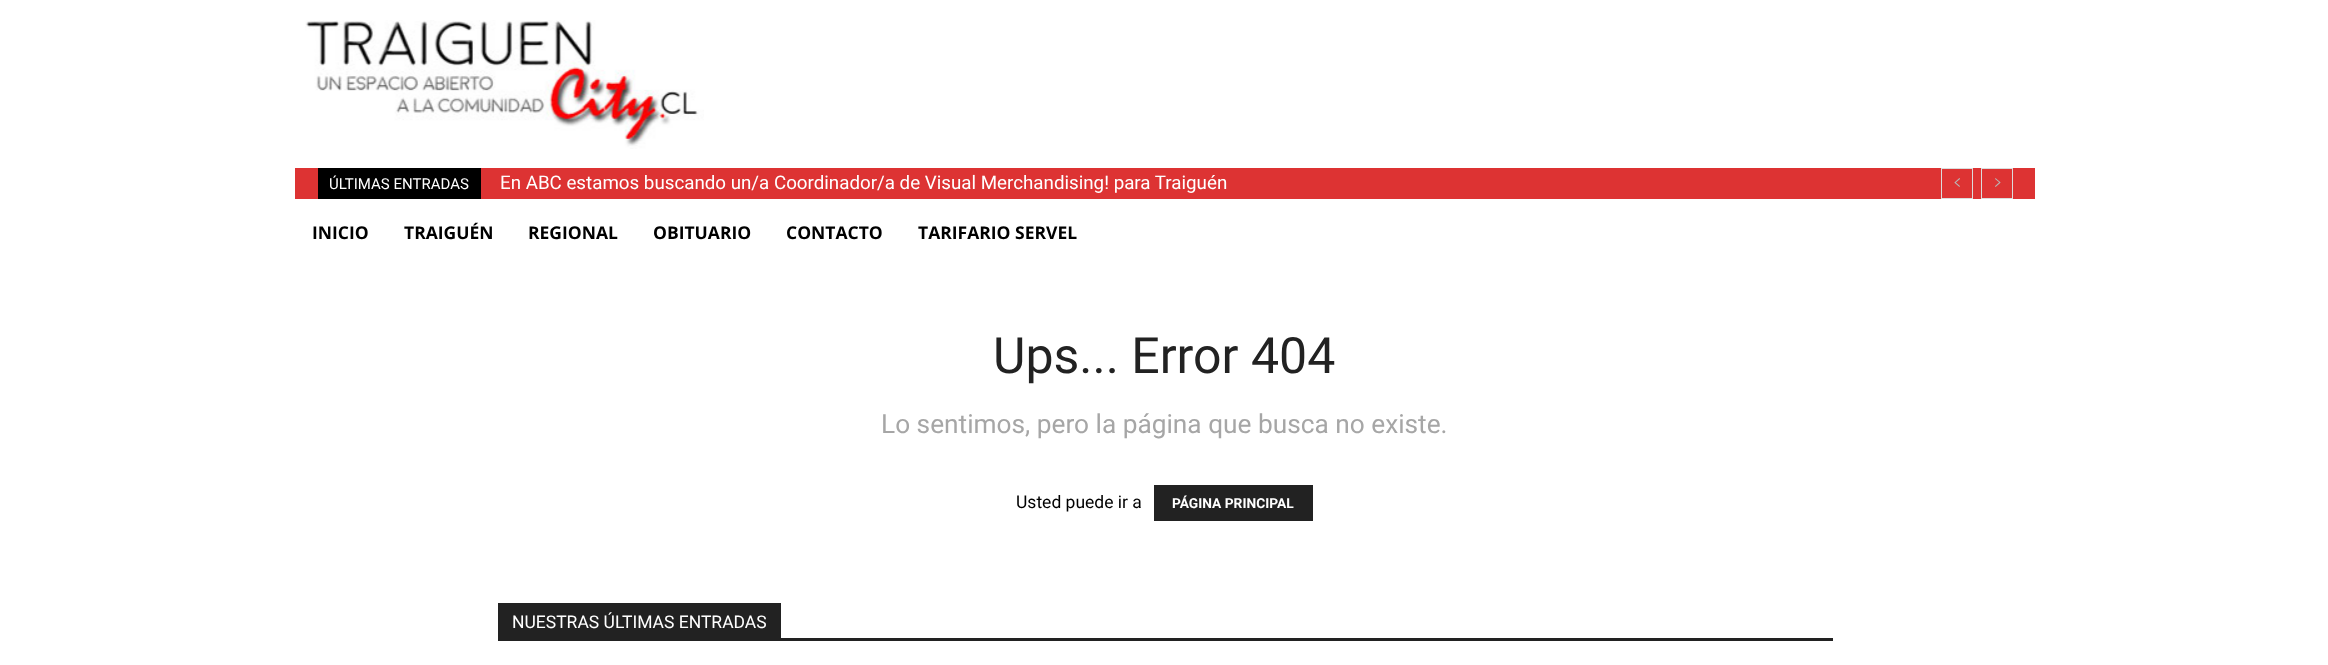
<!DOCTYPE html>
<meta charset="utf-8">
<style>body { margin: 0 } canvas { display: block }</style>
<canvas id="canvas" width="2328" height="665"></canvas>
<img id="img1" src="images/1.png" hidden>
<img id="img2" src="images/2.png" hidden>
<img id="img3" src="images/3.png" hidden>
<script>
window.onload = function () {
    const canvas = document.getElementById('canvas');
    const context = canvas.getContext('2d');
    context.miterLimit = 4;
    context.fontKerning = 'normal';

    context.fillStyle = 'rgb(255, 255, 255)';
    context.fillRect(0, 0, 2328, 665);
    context.drawImage(document.getElementById('img1'), 305, 20, 399, 129);
    context.fillStyle = 'rgb(221, 51, 51)';
    context.fillRect(295, 168, 1740, 31);
    context.fillStyle = 'rgb(0, 0, 0)';
    context.fillRect(318, 168, 163, 31);
    context.strokeStyle = 'rgb(220, 220, 220)';
    context.strokeRect(1941.5, 168.5, 31, 30);
    context.drawImage(document.getElementById('img2'), 1954, 178, 6, 9);
    context.strokeRect(1981.5, 168.5, 31, 30);
    context.drawImage(document.getElementById('img3'), 1995, 178, 6, 9);
    context.fillStyle = 'rgb(34, 34, 34)';
    context.fillRect(1154, 485, 159, 36);
    context.fillRect(498, 638, 1335, 3);
    context.fillRect(498, 603, 283, 35);
    context.font = '15px Roboto';
    context.fillStyle = 'rgb(255, 255, 255)';
    context.fillText('ÚLTIMAS ENTRADAS', 329, 189);
    context.font = '18.75px Roboto';
    context.fillText('En ABC estamos buscando un/a Coordinador/a de Visual Merchandising! para Traiguén', 500, 189);
    context.font = 'bold 17.5px Open Sans';
    context.fillStyle = 'rgb(0, 0, 0)';
    context.fillText('INICIO', 312, 239);
    context.fillText('TRAIGUÉN', 404, 239);
    context.fillText('REGIONAL', 528, 239);
    context.fillText('OBITUARIO', 653, 239);
    context.fillText('CONTACTO', 786, 239);
    context.fillText('TARIFARIO SERVEL', 918, 239);
    context.font = '50px Roboto';
    context.fillStyle = 'rgb(34, 34, 34)';
    context.fillText('Ups... Error 404', 993, 373);
    context.font = '26.25px Roboto';
    context.fillStyle = 'rgb(166, 166, 166)';
    context.fillText('Lo sentimos, pero la página que busca no existe.', 881, 433);
    context.font = '17.5px Roboto';
    context.fillStyle = 'rgb(0, 0, 0)';
    context.fillText('Usted puede ir a', 1016, 508);
    context.font = 'bold 13.75px Roboto';
    context.fillStyle = 'rgb(255, 255, 255)';
    context.fillText('PÁGINA PRINCIPAL', 1172, 508);
    context.font = '17.5px Roboto';
    context.fillText('NUESTRAS ÚLTIMAS ENTRADAS', 512, 628);
};
</script>
